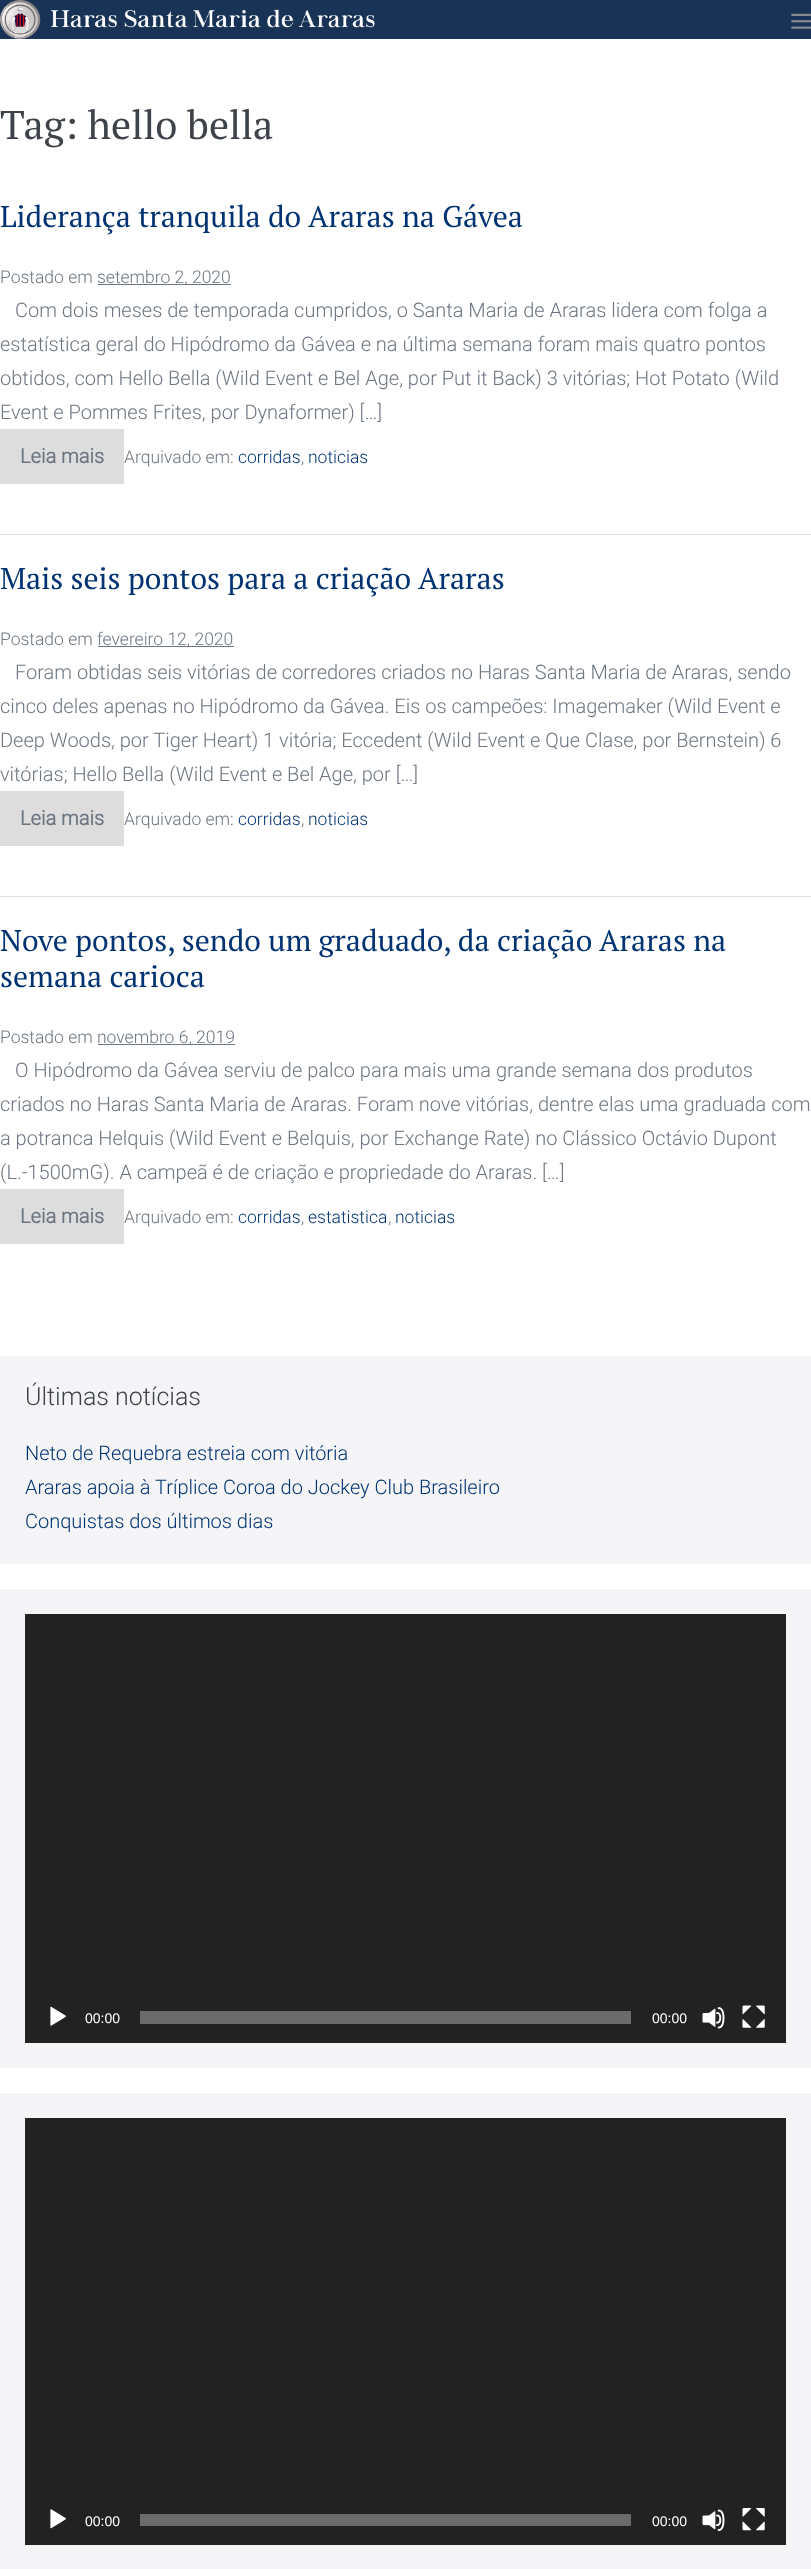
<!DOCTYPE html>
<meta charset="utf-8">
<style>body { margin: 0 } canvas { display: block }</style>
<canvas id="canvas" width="811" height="2569"></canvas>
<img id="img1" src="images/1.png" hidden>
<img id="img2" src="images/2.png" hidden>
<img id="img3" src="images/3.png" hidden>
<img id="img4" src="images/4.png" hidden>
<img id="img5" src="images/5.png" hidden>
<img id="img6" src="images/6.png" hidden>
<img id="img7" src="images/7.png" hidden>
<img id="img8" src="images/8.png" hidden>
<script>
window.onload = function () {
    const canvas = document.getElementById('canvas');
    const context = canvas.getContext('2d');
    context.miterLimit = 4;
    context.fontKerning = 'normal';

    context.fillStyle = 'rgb(255, 255, 255)';
    context.fillRect(0, 0, 811, 2569);
    context.fillStyle = 'rgb(25, 51, 86)';
    context.fillRect(0, 0, 811, 39);
    context.drawImage(document.getElementById('img1'), 0, 0, 375, 39);
    context.drawImage(document.getElementById('img2'), 791, 13, 20, 16);
    context.fillStyle = 'rgb(222, 222, 229)';
    context.fillRect(0, 534, 811, 1);
    context.fillStyle = 'rgb(109, 118, 128)';
    context.fillRect(98, 284, 133, 1);
    context.fillStyle = 'rgb(221, 221, 221)';
    context.fillRect(0, 429, 124, 55);
    context.fillStyle = 'rgb(222, 222, 229)';
    context.fillRect(0, 896, 811, 1);
    context.fillStyle = 'rgb(109, 118, 128)';
    context.fillRect(98, 646, 136, 1);
    context.fillStyle = 'rgb(221, 221, 221)';
    context.fillRect(0, 791, 124, 55);
    context.fillStyle = 'rgb(109, 118, 128)';
    context.fillRect(98, 1044, 137, 1);
    context.fillStyle = 'rgb(221, 221, 221)';
    context.fillRect(0, 1189, 124, 55);
    context.fillStyle = 'rgb(245, 245, 247)';
    context.fillRect(0, 1356, 811, 208);
    context.fillRect(0, 1589, 811, 479);
    context.fillStyle = 'rgb(34, 34, 34)';
    context.fillRect(25, 1614, 761, 429);
    context.drawImage(document.getElementById('img3'), 50, 2006, 16, 20);
    context.fillStyle = 'rgb(107, 107, 107)';
    context.fillRect(140, 2011, 491, 13);
    context.drawImage(document.getElementById('img4'), 702, 2007, 23, 22);
    context.drawImage(document.getElementById('img5'), 742, 2005, 23, 23);
    context.fillStyle = 'rgb(245, 245, 247)';
    context.fillRect(0, 2093, 811, 476);
    context.fillStyle = 'rgb(34, 34, 34)';
    context.fillRect(25, 2118, 761, 427);
    context.drawImage(document.getElementById('img6'), 50, 2509, 16, 20);
    context.fillStyle = 'rgb(107, 107, 107)';
    context.fillRect(140, 2514, 491, 12);
    context.drawImage(document.getElementById('img7'), 702, 2509, 23, 22);
    context.drawImage(document.getElementById('img8'), 742, 2508, 23, 23);
    context.font = '40px PT Serif';
    context.fillStyle = 'rgb(62, 67, 73)';
    context.fillText('Tag: hello bella', 0, 139);
    context.font = '30px PT Serif';
    context.fillStyle = 'rgb(1, 51, 115)';
    context.fillText('Liderança tranquila do Araras na Gávea', 0, 227);
    context.font = '300 17.5px Roboto';
    context.fillStyle = 'rgb(109, 118, 128)';
    context.fillText('Postado em', 0, 283);
    context.fillText('setembro 2, 2020', 97, 283);
    context.font = '300 20px Roboto';
    context.fillText('Com dois meses de temporada cumpridos, o Santa Maria de Araras lidera com folga a', 15, 317);
    context.fillText('estatística geral do Hipódromo da Gávea e na última semana foram mais quatro pontos', 0, 351);
    context.fillText('obtidos, com Hello Bella (Wild Event e Bel Age, por Put it Back) 3 vitórias; Hot Potato (Wild', 0, 385);
    context.fillText('Event e Pommes Frites, por Dynaformer) […]', 0, 419);
    context.font = 'bold 20px Roboto';
    context.fillText('Leia mais', 20, 463);
    context.font = '300 17.5px Roboto';
    context.fillText('Arquivado em:', 124, 463);
    context.fillStyle = 'rgb(1, 51, 115)';
    context.fillText('corridas', 238, 463);
    context.fillStyle = 'rgb(109, 118, 128)';
    context.fillText(',', 301, 463);
    context.fillStyle = 'rgb(1, 51, 115)';
    context.fillText('noticias', 308, 463);
    context.font = '30px PT Serif';
    context.fillText('Mais seis pontos para a criação Araras', 0, 589);
    context.font = '300 17.5px Roboto';
    context.fillStyle = 'rgb(109, 118, 128)';
    context.fillText('Postado em', 0, 645);
    context.fillText('fevereiro 12, 2020', 97, 645);
    context.font = '300 20px Roboto';
    context.fillText('Foram obtidas seis vitórias de corredores criados no Haras Santa Maria de Araras, sendo', 15, 679);
    context.fillText('cinco deles apenas no Hipódromo da Gávea. Eis os campeões: Imagemaker (Wild Event e', 0, 713);
    context.fillText('Deep Woods, por Tiger Heart) 1 vitória; Eccedent (Wild Event e Que Clase, por Bernstein) 6', 0, 747);
    context.fillText('vitórias; Hello Bella (Wild Event e Bel Age, por […]', 0, 781);
    context.font = 'bold 20px Roboto';
    context.fillText('Leia mais', 20, 825);
    context.font = '300 17.5px Roboto';
    context.fillText('Arquivado em:', 124, 825);
    context.fillStyle = 'rgb(1, 51, 115)';
    context.fillText('corridas', 238, 825);
    context.fillStyle = 'rgb(109, 118, 128)';
    context.fillText(',', 301, 825);
    context.fillStyle = 'rgb(1, 51, 115)';
    context.fillText('noticias', 308, 825);
    context.font = '30px PT Serif';
    context.fillText('Nove pontos, sendo um graduado, da criação Araras na', 0, 951);
    context.fillText('semana carioca', 0, 987);
    context.font = '300 17.5px Roboto';
    context.fillStyle = 'rgb(109, 118, 128)';
    context.fillText('Postado em', 0, 1043);
    context.fillText('novembro 6, 2019', 97, 1043);
    context.font = '300 20px Roboto';
    context.fillText('O Hipódromo da Gávea serviu de palco para mais uma grande semana dos produtos', 15, 1077);
    context.fillText('criados no Haras Santa Maria de Araras. Foram nove vitórias, dentre elas uma graduada com', 0, 1111);
    context.fillText('a potranca Helquis (Wild Event e Belquis, por Exchange Rate) no Clássico Octávio Dupont', 0, 1145);
    context.fillText('(L.-1500mG). A campeã é de criação e propriedade do Araras. […]', 0, 1179);
    context.font = 'bold 20px Roboto';
    context.fillText('Leia mais', 20, 1223);
    context.font = '300 17.5px Roboto';
    context.fillText('Arquivado em:', 124, 1223);
    context.fillStyle = 'rgb(1, 51, 115)';
    context.fillText('corridas', 238, 1223);
    context.fillStyle = 'rgb(109, 118, 128)';
    context.fillText(',', 301, 1223);
    context.fillStyle = 'rgb(1, 51, 115)';
    context.fillText('estatistica', 308, 1223);
    context.fillStyle = 'rgb(109, 118, 128)';
    context.fillText(',', 388, 1223);
    context.fillStyle = 'rgb(1, 51, 115)';
    context.fillText('noticias', 395, 1223);
    context.font = '300 25px Roboto';
    context.fillStyle = 'rgb(62, 67, 73)';
    context.fillText('Últimas notícias', 25, 1405);
    context.font = '300 20px Roboto';
    context.fillStyle = 'rgb(1, 51, 115)';
    context.fillText('Neto de Requebra estreia com vitória', 25, 1460);
    context.fillText('Araras apoia à Tríplice Coroa do Jockey Club Brasileiro', 25, 1494);
    context.fillText('Conquistas dos últimos dias', 25, 1528);
    context.font = '14px Liberation Sans';
    context.fillStyle = 'rgb(255, 255, 255)';
    context.fillText('00:00', 85, 2023);
    context.fillText('00:00', 652, 2023);
    context.fillText('00:00', 85, 2526);
    context.fillText('00:00', 652, 2526);
};
</script>
